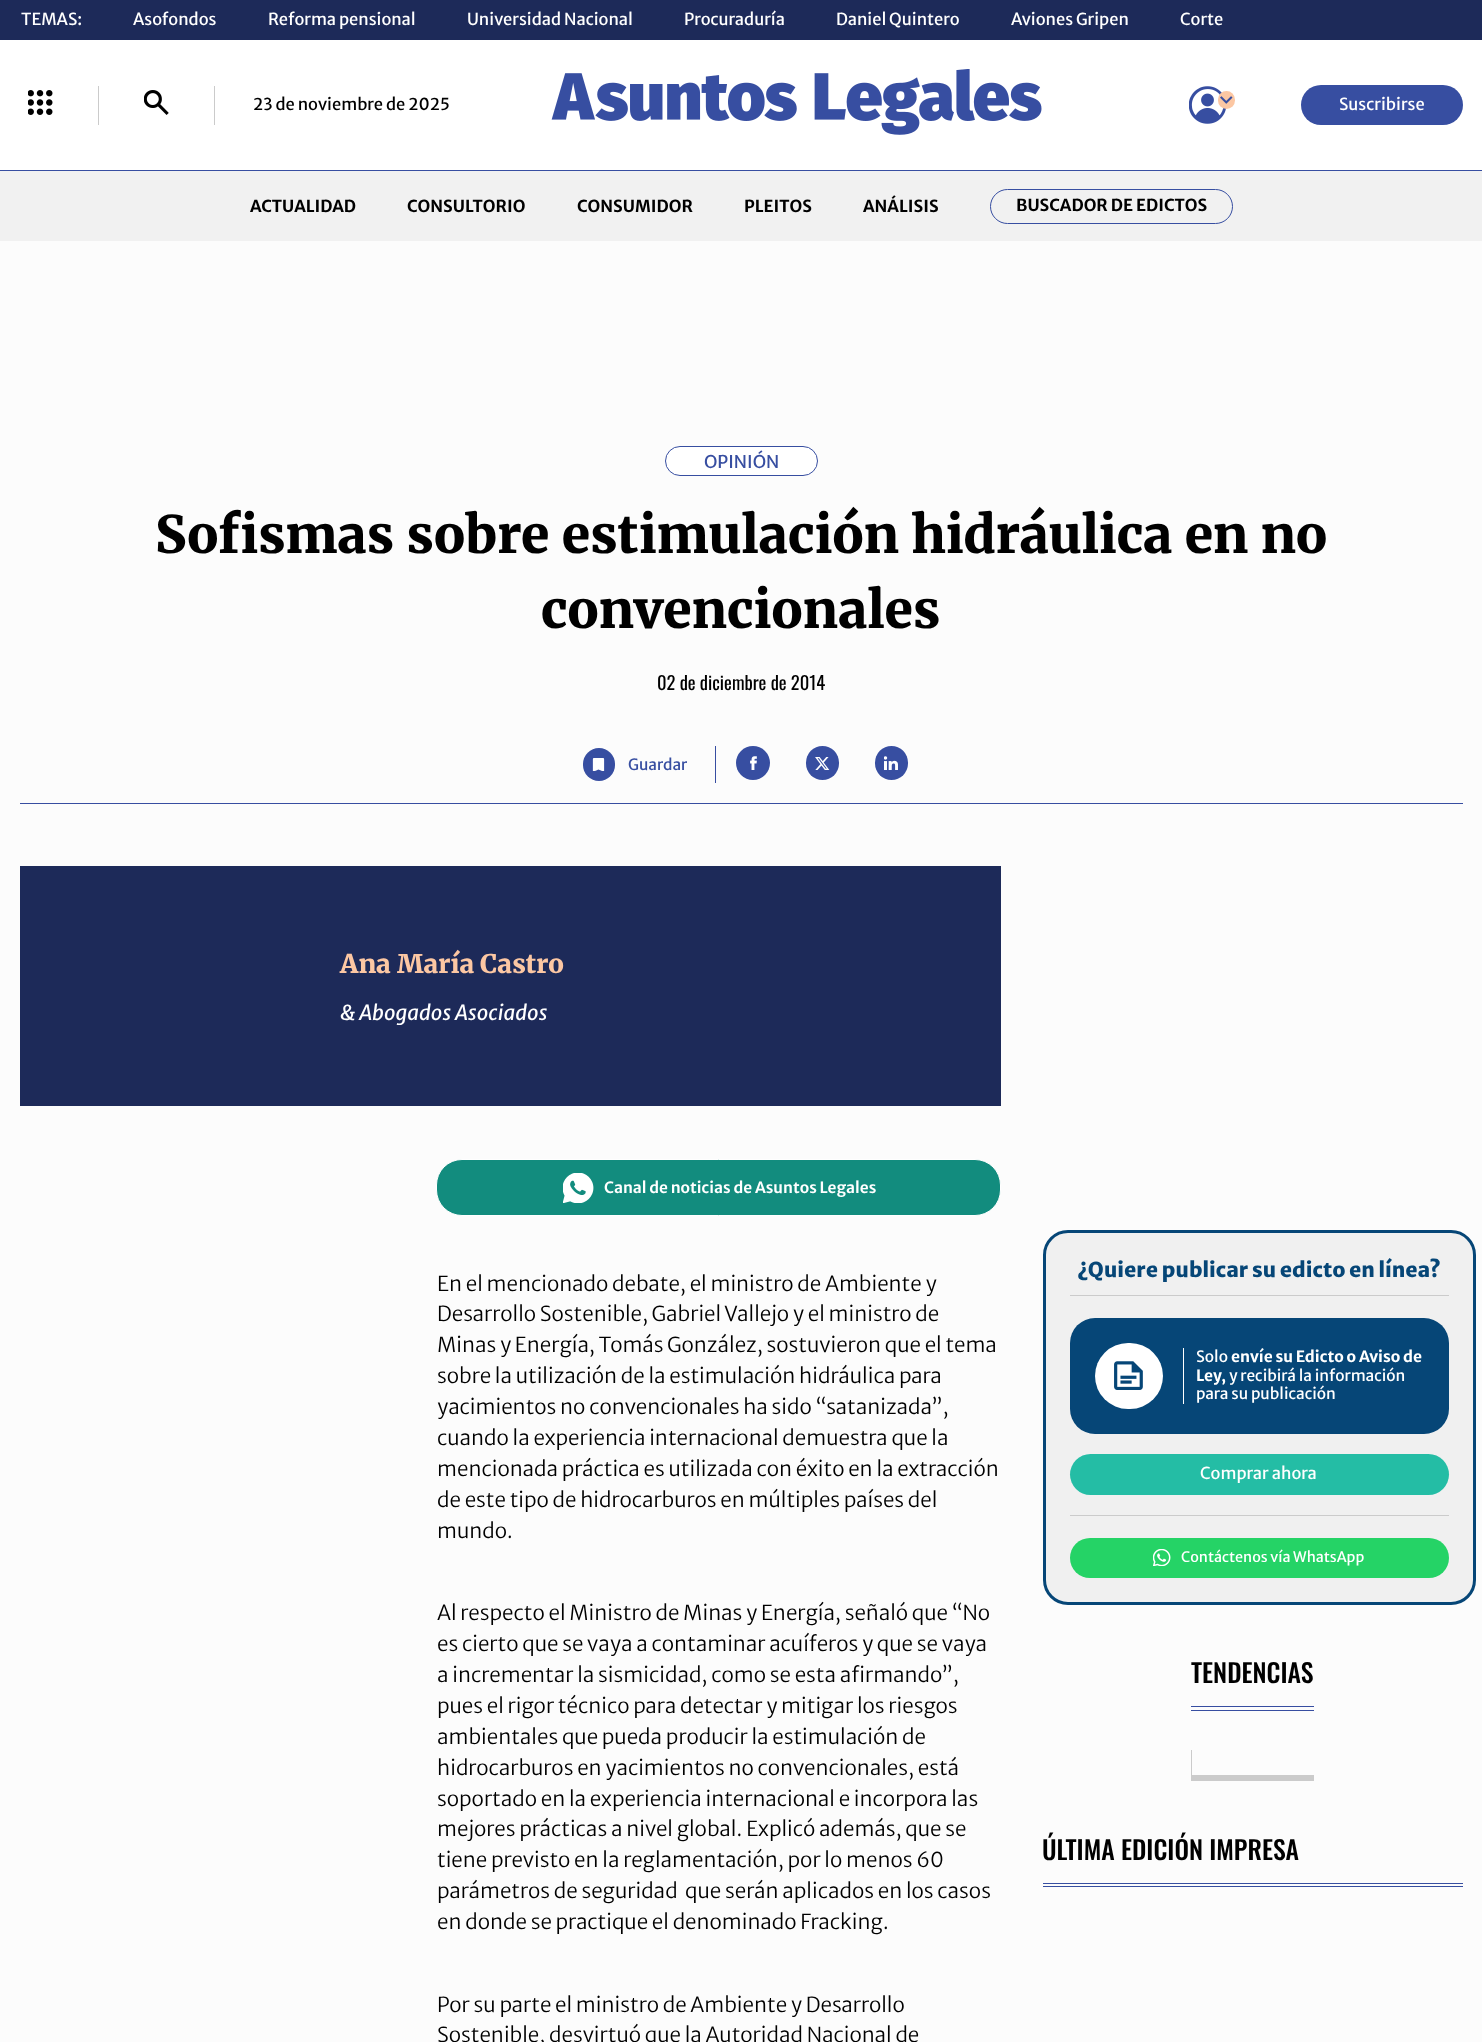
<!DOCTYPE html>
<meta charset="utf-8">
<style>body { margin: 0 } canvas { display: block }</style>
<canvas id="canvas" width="1482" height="2042"></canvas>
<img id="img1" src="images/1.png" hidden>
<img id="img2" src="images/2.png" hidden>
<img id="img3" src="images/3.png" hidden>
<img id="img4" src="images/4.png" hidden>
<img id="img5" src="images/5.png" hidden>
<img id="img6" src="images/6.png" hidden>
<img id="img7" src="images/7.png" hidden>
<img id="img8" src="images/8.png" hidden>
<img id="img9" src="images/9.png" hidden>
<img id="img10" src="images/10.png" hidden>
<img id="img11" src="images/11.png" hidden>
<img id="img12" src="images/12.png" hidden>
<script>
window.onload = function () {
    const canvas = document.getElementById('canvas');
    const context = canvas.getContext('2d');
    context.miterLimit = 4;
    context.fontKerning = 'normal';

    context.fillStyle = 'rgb(252, 252, 252)';
    context.fillRect(0, 0, 1482, 2042);
    context.fillStyle = 'rgb(255, 255, 255)';
    context.fillRect(0, 40, 1482, 130);
    context.fillStyle = 'rgb(29, 42, 89)';
    context.fillRect(0, 0, 1482, 40);
    context.fillStyle = 'rgb(55, 78, 161)';
    context.fillRect(0, 170, 1482, 1);
    context.drawImage(document.getElementById('img1'), 28, 90, 25, 25);
    context.fillStyle = 'rgb(203, 203, 203)';
    context.fillRect(98, 86, 1, 39);
    context.drawImage(document.getElementById('img2'), 144, 90, 25, 25);
    context.fillRect(214, 86, 1, 39);
    context.drawImage(document.getElementById('img3'), 551, 69, 491, 66);
    context.drawImage(document.getElementById('img4'), 1189, 86, 37, 38);
    context.fillStyle = 'rgb(252, 199, 163)';
    context.beginPath();
    context.roundRect(1218, 91, 17, 18, 8.5);
    context.fill();
    context.drawImage(document.getElementById('img5'), 1220, 96, 13, 8);
    context.fillStyle = 'rgb(55, 78, 161)';
    context.beginPath();
    context.roundRect(1301, 85, 162, 40, 20);
    context.fill();
    context.fillStyle = 'rgb(241, 241, 241)';
    context.fillRect(0, 171, 1482, 70);
    context.beginPath();
    context.roundRect(990.5, 189.5, 242, 34, 17);
    context.strokeStyle = 'rgb(55, 78, 161)';
    context.stroke();
    context.fillStyle = 'rgb(55, 78, 161)';
    context.fillRect(20, 803, 1443, 1);
    context.fillStyle = 'rgb(255, 255, 255)';
    context.beginPath();
    context.roundRect(665.5, 446.5, 152, 29, 14.5);
    context.fill();
    context.stroke();
    context.fillStyle = 'rgb(55, 78, 161)';
    context.beginPath();
    context.roundRect(583, 748, 32, 33, 16);
    context.fill();
    context.drawImage(document.getElementById('img6'), 592, 758, 13, 13);
    context.fillRect(715, 746, 1, 37);
    context.beginPath();
    context.arc(753, 763, 17, 0, 2 * Math.PI);
    context.fill();
    context.drawImage(document.getElementById('img7'), 750, 756, 7, 14);
    context.beginPath();
    context.roundRect(806, 746, 33, 34, 16.5);
    context.fill();
    context.drawImage(document.getElementById('img8'), 815, 757, 15, 13);
    context.beginPath();
    context.roundRect(875, 746, 33, 34, 16.5);
    context.fill();
    context.drawImage(document.getElementById('img9'), 884, 756, 14, 14);
    context.fillStyle = 'rgb(29, 42, 89)';
    context.fillRect(20, 866, 981, 240);
    context.fillStyle = 'rgb(18, 140, 126)';
    context.beginPath();
    context.roundRect(436.5, 1159.5, 564, 56, 25.5);
    context.fill();
    context.strokeStyle = 'rgb(255, 255, 255)';
    context.stroke();
    context.drawImage(document.getElementById('img10'), 563, 1173, 31, 30);
    context.fillStyle = 'rgb(240, 240, 240)';
    context.beginPath();
    context.roundRect(1044.5, 1231.5, 430, 372, 23.5);
    context.fill();
    context.strokeStyle = 'rgb(6, 70, 119)';
    context.lineWidth = 3;
    context.stroke();
    context.fillStyle = 'rgb(203, 203, 203)';
    context.fillRect(1070, 1295, 379, 1);
    context.fillStyle = 'rgb(6, 70, 119)';
    context.beginPath();
    context.roundRect(1070, 1318, 379, 116, 25);
    context.fill();
    context.fillStyle = 'rgb(255, 255, 255)';
    context.beginPath();
    context.roundRect(1095, 1343, 68, 66, 33);
    context.fill();
    context.drawImage(document.getElementById('img11'), 1114, 1361, 29, 29);
    context.fillRect(1183, 1348, 1, 56);
    context.fillStyle = 'rgb(36, 189, 165)';
    context.beginPath();
    context.roundRect(1070, 1454, 379, 41, 20.5);
    context.fill();
    context.fillStyle = 'rgb(203, 203, 203)';
    context.fillRect(1070, 1515, 379, 1);
    context.fillStyle = 'rgb(37, 211, 102)';
    context.beginPath();
    context.roundRect(1070, 1538, 379, 40, 20);
    context.fill();
    context.drawImage(document.getElementById('img12'), 1153, 1549, 18, 17);
    context.fillStyle = 'rgb(55, 78, 161)';
    context.fillRect(1191, 1706, 123, 1);
    context.fillRect(1191, 1710, 123, 1);
    context.fillStyle = 'rgb(203, 203, 203)';
    context.fillRect(1191, 1775, 123, 6);
    context.fillRect(1191, 1750, 1, 31);
    context.fillStyle = 'rgb(55, 78, 161)';
    context.fillRect(1043, 1883, 420, 1);
    context.fillRect(1043, 1886, 420, 1);
    context.font = '16.5px Merriweather Sans';
    context.fillStyle = 'rgb(255, 255, 255)';
    context.fillText('TEMAS:', 21, 25);
    context.fillText('Asofondos', 133, 25);
    context.fillText('Reforma pensional', 268, 25);
    context.fillText('Universidad Nacional', 467, 25);
    context.fillText('Procuraduría', 684, 25);
    context.fillText('Daniel Quintero', 836, 25);
    context.fillText('Aviones Gripen', 1011, 25);
    context.fillText('Corte', 1180, 25);
    context.fillStyle = 'rgb(0, 0, 0)';
    context.fillText('23 de noviembre de 2025', 253, 110);
    context.fillStyle = 'rgb(255, 255, 255)';
    context.fillText('Suscribirse', 1339, 110);
    context.font = 'bold 16.5px Merriweather Sans';
    context.fillStyle = 'rgb(0, 0, 0)';
    context.fillText('ACTUALIDAD', 250, 212);
    context.fillText('CONSULTORIO', 407, 212);
    context.fillText('CONSUMIDOR', 577, 212);
    context.fillText('PLEITOS', 744, 212);
    context.fillText('ANÁLISIS', 863, 212);
    context.fillText('BUSCADOR DE EDICTOS', 1016, 211);
    context.font = '17.5px Merriweather Sans';
    context.fillStyle = 'rgb(55, 78, 161)';
    context.fillText('OPINIÓN', 704, 468);
    context.font = '900 51.5px Merriweather';
    context.fillStyle = 'rgb(0, 0, 0)';
    context.fillText('Sofismas sobre estimulación hidráulica en no', 155, 553);
    context.fillText('convencionales', 541, 628);
    context.font = '18.5px Oswald';
    context.fillText('02 de diciembre de 2014', 657, 690);
    context.font = '15.5px Merriweather Sans';
    context.fillStyle = 'rgb(55, 78, 161)';
    context.fillText('Guardar', 628, 770);
    context.font = '900 25.75px Merriweather';
    context.fillStyle = 'rgb(252, 199, 163)';
    context.fillText('Ana María Castro', 340, 973);
    context.font = 'italic 20.6px Merriweather Sans';
    context.fillStyle = 'rgb(255, 255, 255)';
    context.fillText('& Abogados Asociados', 340, 1020);
    context.font = '600 15.5px Merriweather Sans';
    context.fillText('Canal de noticias de Asuntos Legales', 604, 1193);
    context.font = '300 20.6px Merriweather Sans';
    context.fillStyle = 'rgb(0, 0, 0)';
    context.fillText('En el mencionado debate, el ministro de Ambiente y', 437, 1291);
    context.fillText('Desarrollo Sostenible, Gabriel Vallejo y el ministro de', 437, 1321);
    context.fillText('Minas y Energía, Tomás González, sostuvieron que el tema', 437, 1352);
    context.fillText('sobre la utilización de la estimulación hidráulica para', 437, 1383);
    context.fillText('yacimientos no convencionales ha sido “satanizada”,', 437, 1414);
    context.fillText('cuando la experiencia internacional demuestra que la', 437, 1445);
    context.fillText('mencionada práctica es utilizada con éxito en la extracción', 437, 1476);
    context.fillText('de este tipo de hidrocarburos en múltiples países del', 437, 1507);
    context.fillText('mundo.', 437, 1538);
    context.fillText('Al respecto el Ministro de Minas y Energía, señaló que “No', 437, 1620);
    context.fillText('es cierto que se vaya a contaminar acuíferos y que se vaya', 437, 1651);
    context.fillText('a incrementar la sismicidad, como se esta afirmando”,', 437, 1682);
    context.fillText('pues el rigor técnico para detectar y mitigar los riesgos', 437, 1713);
    context.fillText('ambientales que pueda producir la estimulación de', 437, 1744);
    context.fillText('hidrocarburos en yacimientos no convencionales, está', 437, 1775);
    context.fillText('soportado en la experiencia internacional e incorpora las', 437, 1806);
    context.fillText('mejores prácticas a nivel global. Explicó además, que se', 437, 1836);
    context.fillText('tiene previsto en la reglamentación, por lo menos 60', 437, 1867);
    context.fillText('parámetros de seguridad  que serán aplicados en los casos', 437, 1898);
    context.fillText('en donde se practique el denominado Fracking.', 437, 1929);
    context.fillText('Por su parte el ministro de Ambiente y Desarrollo', 437, 2012);
    context.fillText('Sostenible, desvirtuó que la Autoridad Nacional de', 437, 2042);
    context.font = '800 20.6px Merriweather Sans';
    context.fillStyle = 'rgb(6, 70, 119)';
    context.fillText('¿Quiere publicar su edicto en línea?', 1077, 1277);
    context.font = '15.5px Merriweather Sans';
    context.fillStyle = 'rgb(255, 255, 255)';
    context.fillText('Solo', 1196, 1362);
    context.font = 'bold 15.5px Merriweather Sans';
    context.fillText('envíe su Edicto o Aviso de', 1231, 1362);
    context.fillText('Ley,', 1196, 1381);
    context.font = '15.5px Merriweather Sans';
    context.fillText('y recibirá la información', 1229, 1381);
    context.fillText('para su publicación', 1196, 1399);
    context.font = '16.5px Merriweather Sans';
    context.fillText('Comprar ahora', 1200, 1479);
    context.font = '14.4px Merriweather Sans';
    context.fillText('Contáctenos vía WhatsApp', 1181, 1562);
    context.font = '500 25.75px Oswald';
    context.fillStyle = 'rgb(0, 0, 0)';
    context.fillText('TENDENCIAS', 1191, 1683);
    context.fillText('ÚLTIMA EDICIÓN IMPRESA', 1042, 1860);
};
</script>
